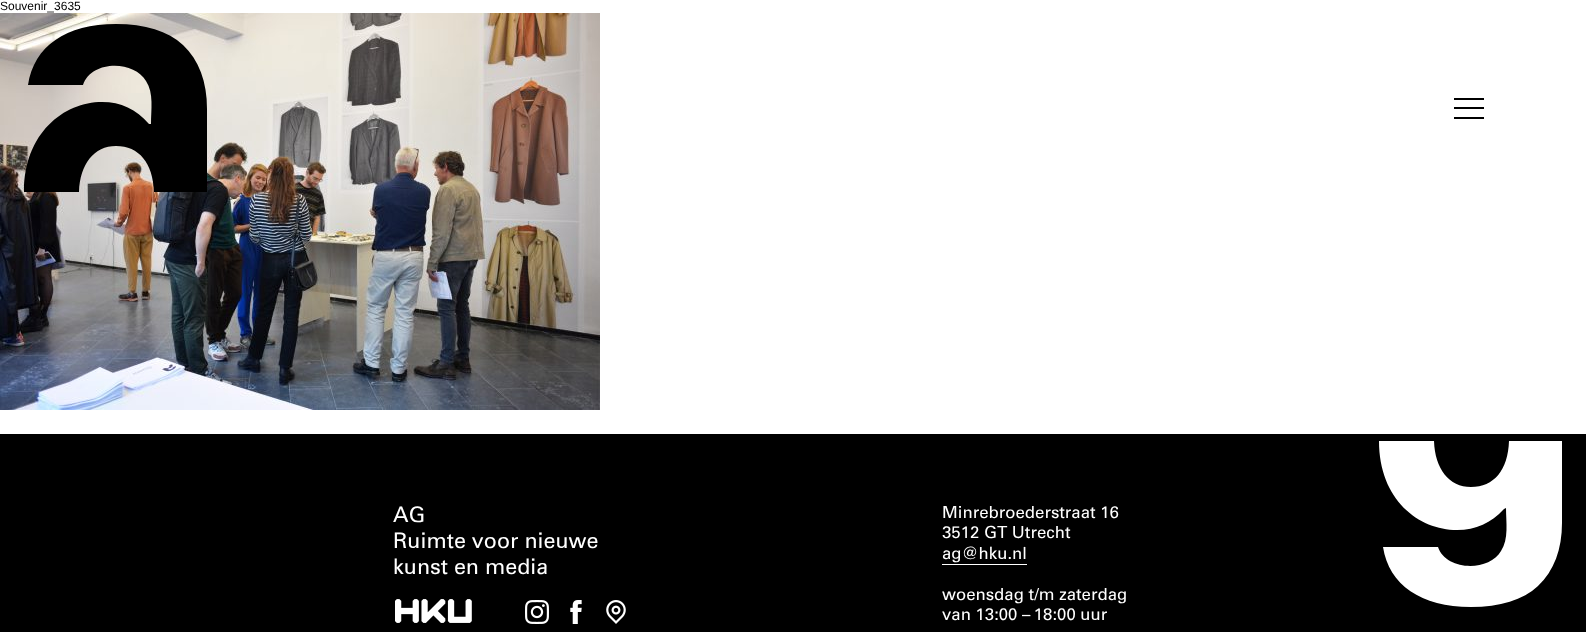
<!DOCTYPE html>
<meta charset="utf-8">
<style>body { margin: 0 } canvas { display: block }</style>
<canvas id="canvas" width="1586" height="632"></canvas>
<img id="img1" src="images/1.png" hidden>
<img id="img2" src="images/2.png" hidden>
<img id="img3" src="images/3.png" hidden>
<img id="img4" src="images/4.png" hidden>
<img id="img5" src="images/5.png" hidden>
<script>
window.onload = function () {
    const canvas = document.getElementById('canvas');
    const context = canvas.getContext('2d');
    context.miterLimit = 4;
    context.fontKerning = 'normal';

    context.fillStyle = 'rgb(255, 255, 255)';
    context.fillRect(0, 0, 1586, 632);
    context.drawImage(document.getElementById('img1'), 0, 13, 600, 397);
    context.fillStyle = 'rgb(0, 0, 0)';
    context.beginPath();
    context.moveTo(207, 192);
    context.lineTo(154, 192);
    context.bezierCurveTo(153, 163, 139, 146, 116, 146);
    context.bezierCurveTo(94, 146, 80, 164, 79, 192);
    context.lineTo(24, 192);
    context.bezierCurveTo(24, 133, 64, 102, 102, 102);
    context.bezierCurveTo(121, 102, 136, 109, 149, 124);
    context.lineTo(151, 124);
    context.bezierCurveTo(151, 110, 154, 93, 146, 81);
    context.bezierCurveTo(134, 60, 91, 60, 83, 85);
    context.lineTo(28, 85);
    context.bezierCurveTo(34, 46, 66, 24, 116, 24);
    context.bezierCurveTo(145, 24, 168, 31, 183, 45);
    context.bezierCurveTo(199, 60, 207, 82, 207, 109);
    context.closePath();
    context.fill();
    context.fillRect(1454, 98, 30, 2);
    context.fillRect(1454, 107, 30, 2);
    context.fillRect(1454, 117, 30, 2);
    context.fillRect(0, 434, 1586, 198);
    context.drawImage(document.getElementById('img2'), 395, 599, 77, 24);
    context.fillStyle = 'rgb(255, 255, 255)';
    context.fillRect(942, 564, 85, 1);
    context.drawImage(document.getElementById('img3'), 525, 600, 24, 24);
    context.drawImage(document.getElementById('img4'), 570, 600, 12, 24);
    context.drawImage(document.getElementById('img5'), 606, 600, 20, 24);
    context.beginPath();
    context.moveTo(1562, 441);
    context.lineTo(1509, 441);
    context.bezierCurveTo(1508, 470, 1494, 487, 1471, 487);
    context.bezierCurveTo(1449, 487, 1435, 469, 1434, 441);
    context.lineTo(1379, 441);
    context.bezierCurveTo(1379, 500, 1419, 530, 1457, 530);
    context.bezierCurveTo(1476, 530, 1491, 523, 1504, 509);
    context.lineTo(1506, 508);
    context.bezierCurveTo(1506, 522, 1509, 539, 1501, 551);
    context.bezierCurveTo(1489, 572, 1446, 571, 1438, 547);
    context.lineTo(1383, 547);
    context.bezierCurveTo(1389, 585, 1421, 607, 1471, 607);
    context.bezierCurveTo(1500, 607, 1523, 600, 1538, 586);
    context.bezierCurveTo(1554, 571, 1562, 549, 1562, 523);
    context.closePath();
    context.fill();
    context.font = '12px Liberation Sans';
    context.fillStyle = 'rgb(0, 0, 0)';
    context.fillText('Souvenir_3635', 0, 10);
    context.font = '21.5px "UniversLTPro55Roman"';
    context.fillStyle = 'rgb(255, 255, 255)';
    context.fillText('AG', 393, 522);
    context.fillText('Ruimte voor nieuwe', 393, 548);
    context.fillText('kunst en media', 393, 574);
    context.font = '16.75px "UniversLTPro55Roman"';
    context.fillText('Minrebroederstraat 16', 942, 518);
    context.fillText('3512 GT Utrecht', 942, 538);
    context.fillText('ag@hku.nl', 942, 559);
    context.fillText('woensdag t/m zaterdag', 942, 600);
    context.fillText('van 13:00 – 18:00 uur', 942, 620);
};
</script>
